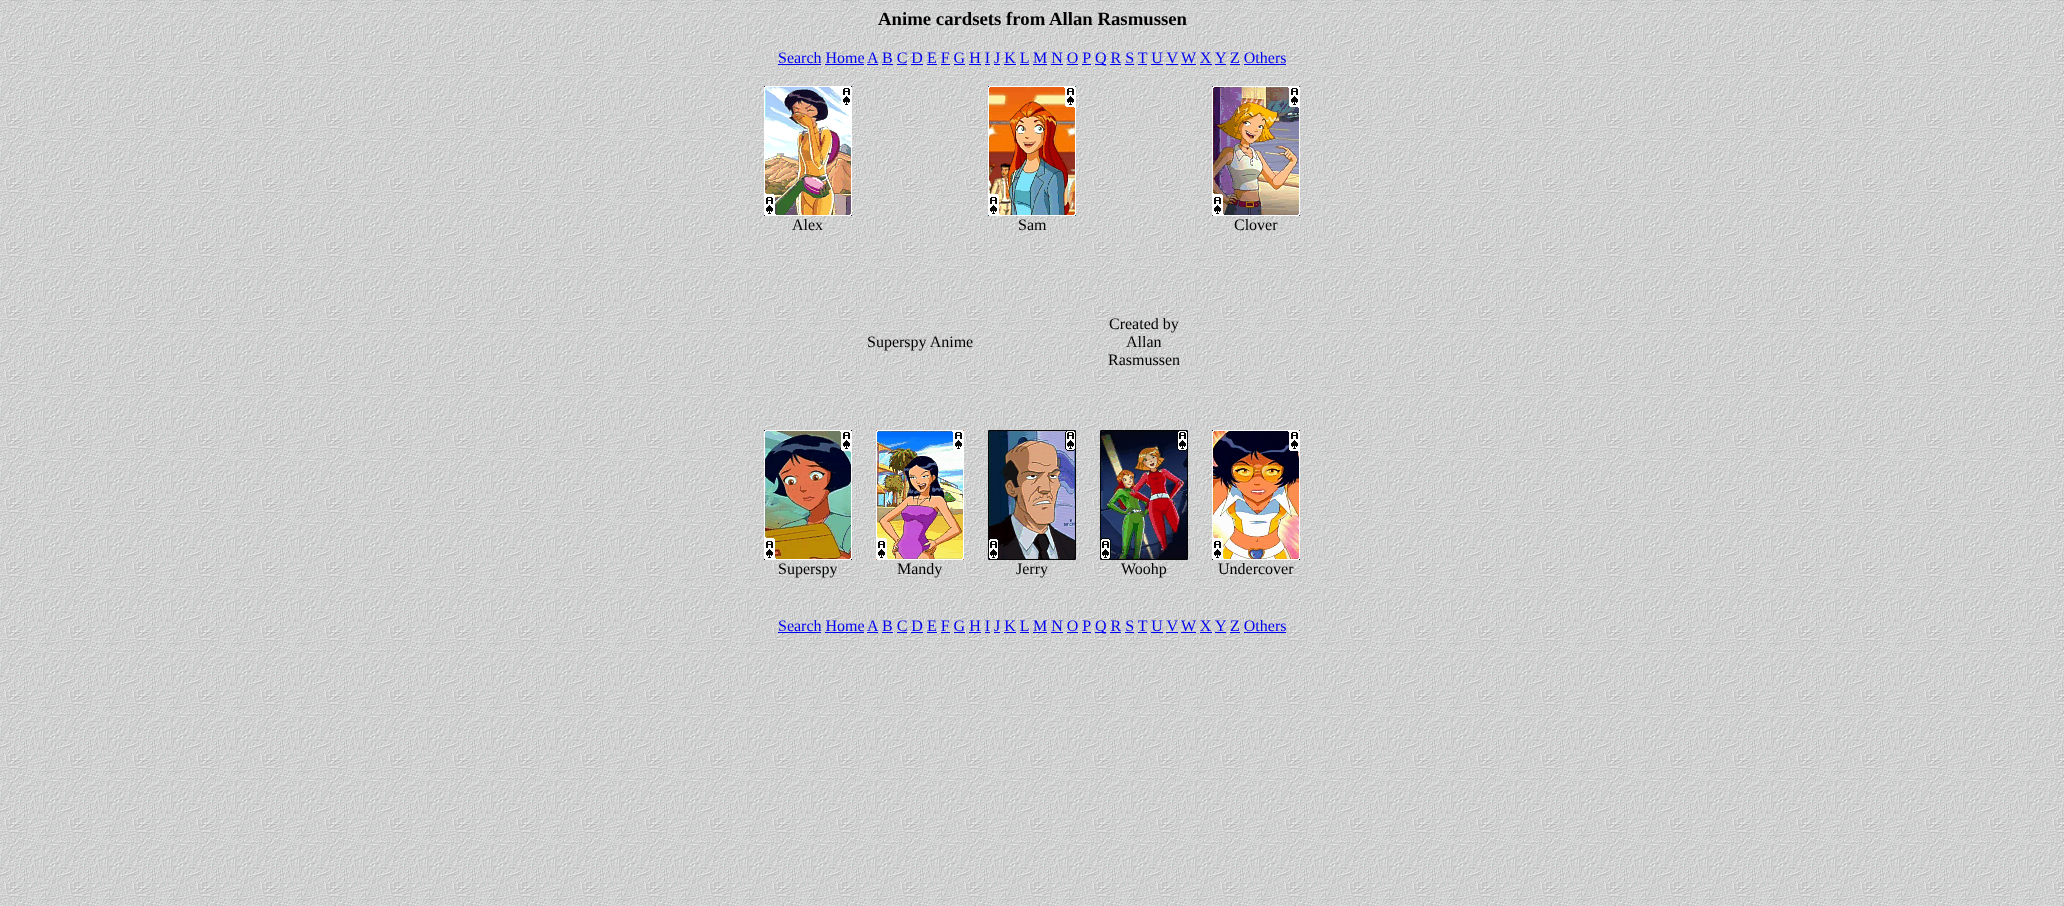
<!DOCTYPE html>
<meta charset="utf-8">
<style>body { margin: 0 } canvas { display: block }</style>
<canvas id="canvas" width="2064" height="906"></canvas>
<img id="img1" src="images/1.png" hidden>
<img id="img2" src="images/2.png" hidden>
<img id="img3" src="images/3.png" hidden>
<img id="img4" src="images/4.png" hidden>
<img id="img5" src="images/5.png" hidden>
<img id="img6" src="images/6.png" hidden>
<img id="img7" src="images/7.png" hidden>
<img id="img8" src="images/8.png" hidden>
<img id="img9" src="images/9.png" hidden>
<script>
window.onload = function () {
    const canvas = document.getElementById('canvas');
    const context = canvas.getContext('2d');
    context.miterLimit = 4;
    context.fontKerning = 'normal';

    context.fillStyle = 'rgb(255, 255, 255)';
    context.fillRect(0, 0, 2064, 906);
    context.drawImage(document.getElementById('img1'), 0, 0, 2064, 906);
    context.fillStyle = 'rgb(0, 0, 238)';
    context.fillRect(778, 64, 43, 1);
    context.fillRect(867, 64, 11, 1);
    context.fillRect(882, 64, 11, 1);
    context.fillRect(1033, 64, 14, 1);
    context.fillRect(1095, 64, 11, 1);
    context.fillRect(1181, 64, 15, 1);
    context.fillRect(1215, 64, 11, 1);
    context.fillRect(1230, 64, 10, 1);
    context.fillRect(825, 64, 39, 1);
    context.fillRect(897, 64, 10, 1);
    context.fillRect(911, 64, 12, 1);
    context.fillRect(927, 64, 10, 1);
    context.fillRect(941, 64, 9, 1);
    context.fillRect(954, 64, 11, 1);
    context.fillRect(969, 64, 12, 1);
    context.fillRect(985, 64, 5, 1);
    context.fillRect(994, 64, 6, 1);
    context.fillRect(1004, 64, 12, 1);
    context.fillRect(1020, 64, 9, 1);
    context.fillRect(1051, 64, 12, 1);
    context.fillRect(1067, 64, 11, 1);
    context.fillRect(1082, 64, 9, 1);
    context.fillRect(1110, 64, 11, 1);
    context.fillRect(1125, 64, 9, 1);
    context.fillRect(1138, 64, 9, 1);
    context.fillRect(1151, 64, 12, 1);
    context.fillRect(1166, 64, 12, 1);
    context.fillRect(1200, 64, 12, 1);
    context.fillRect(1244, 64, 42, 1);
    context.drawImage(document.getElementById('img2'), 764, 86, 88, 130);
    context.drawImage(document.getElementById('img3'), 988, 86, 88, 130);
    context.drawImage(document.getElementById('img4'), 1212, 86, 88, 130);
    context.drawImage(document.getElementById('img5'), 764, 430, 88, 130);
    context.drawImage(document.getElementById('img6'), 876, 430, 88, 130);
    context.drawImage(document.getElementById('img7'), 988, 430, 88, 130);
    context.drawImage(document.getElementById('img8'), 1100, 430, 88, 130);
    context.drawImage(document.getElementById('img9'), 1212, 430, 88, 130);
    context.fillRect(778, 632, 43, 1);
    context.fillRect(867, 632, 11, 1);
    context.fillRect(882, 632, 11, 1);
    context.fillRect(1033, 632, 14, 1);
    context.fillRect(1095, 632, 11, 1);
    context.fillRect(1181, 632, 15, 1);
    context.fillRect(1215, 632, 11, 1);
    context.fillRect(1230, 632, 10, 1);
    context.fillRect(825, 632, 39, 1);
    context.fillRect(897, 632, 10, 1);
    context.fillRect(911, 632, 12, 1);
    context.fillRect(927, 632, 10, 1);
    context.fillRect(941, 632, 9, 1);
    context.fillRect(954, 632, 11, 1);
    context.fillRect(969, 632, 12, 1);
    context.fillRect(985, 632, 5, 1);
    context.fillRect(994, 632, 6, 1);
    context.fillRect(1004, 632, 12, 1);
    context.fillRect(1020, 632, 9, 1);
    context.fillRect(1051, 632, 12, 1);
    context.fillRect(1067, 632, 11, 1);
    context.fillRect(1082, 632, 9, 1);
    context.fillRect(1110, 632, 11, 1);
    context.fillRect(1125, 632, 9, 1);
    context.fillRect(1138, 632, 9, 1);
    context.fillRect(1151, 632, 12, 1);
    context.fillRect(1166, 632, 12, 1);
    context.fillRect(1200, 632, 12, 1);
    context.fillRect(1244, 632, 42, 1);
    context.font = 'bold 18.75px Liberation Serif';
    context.fillStyle = 'rgb(0, 0, 0)';
    context.fillText('Anime cardsets from Allan Rasmussen', 878, 25);
    context.font = '16px Liberation Serif';
    context.fillStyle = 'rgb(0, 0, 238)';
    context.fillText('Search Home', 778, 63);
    context.fillText('A', 867, 63);
    context.fillText('B C D E F G H I J K L', 882, 63);
    context.fillText('M N O P', 1033, 63);
    context.fillText('Q R S T U V', 1095, 63);
    context.fillText('W X', 1181, 63);
    context.fillText('Y', 1215, 63);
    context.fillText('Z Others', 1230, 63);
    context.fillStyle = 'rgb(0, 0, 0)';
    context.fillText('Alex', 792, 230);
    context.fillText('Sam', 1018, 230);
    context.fillText('Clover', 1234, 230);
    context.fillText('Superspy Anime', 867, 347);
    context.fillText('Created by', 1109, 329);
    context.fillText('Allan', 1126, 347);
    context.fillText('Rasmussen', 1108, 365);
    context.fillText('Superspy', 778, 574);
    context.fillText('Mandy', 897, 574);
    context.fillText('Jerry', 1016, 574);
    context.fillText('Woohp', 1121, 574);
    context.fillText('Undercover', 1218, 574);
    context.fillStyle = 'rgb(0, 0, 238)';
    context.fillText('Search Home', 778, 631);
    context.fillText('A', 867, 631);
    context.fillText('B C D E F G H I J K L', 882, 631);
    context.fillText('M N O P', 1033, 631);
    context.fillText('Q R S T U V', 1095, 631);
    context.fillText('W X', 1181, 631);
    context.fillText('Y', 1215, 631);
    context.fillText('Z Others', 1230, 631);
};
</script>
